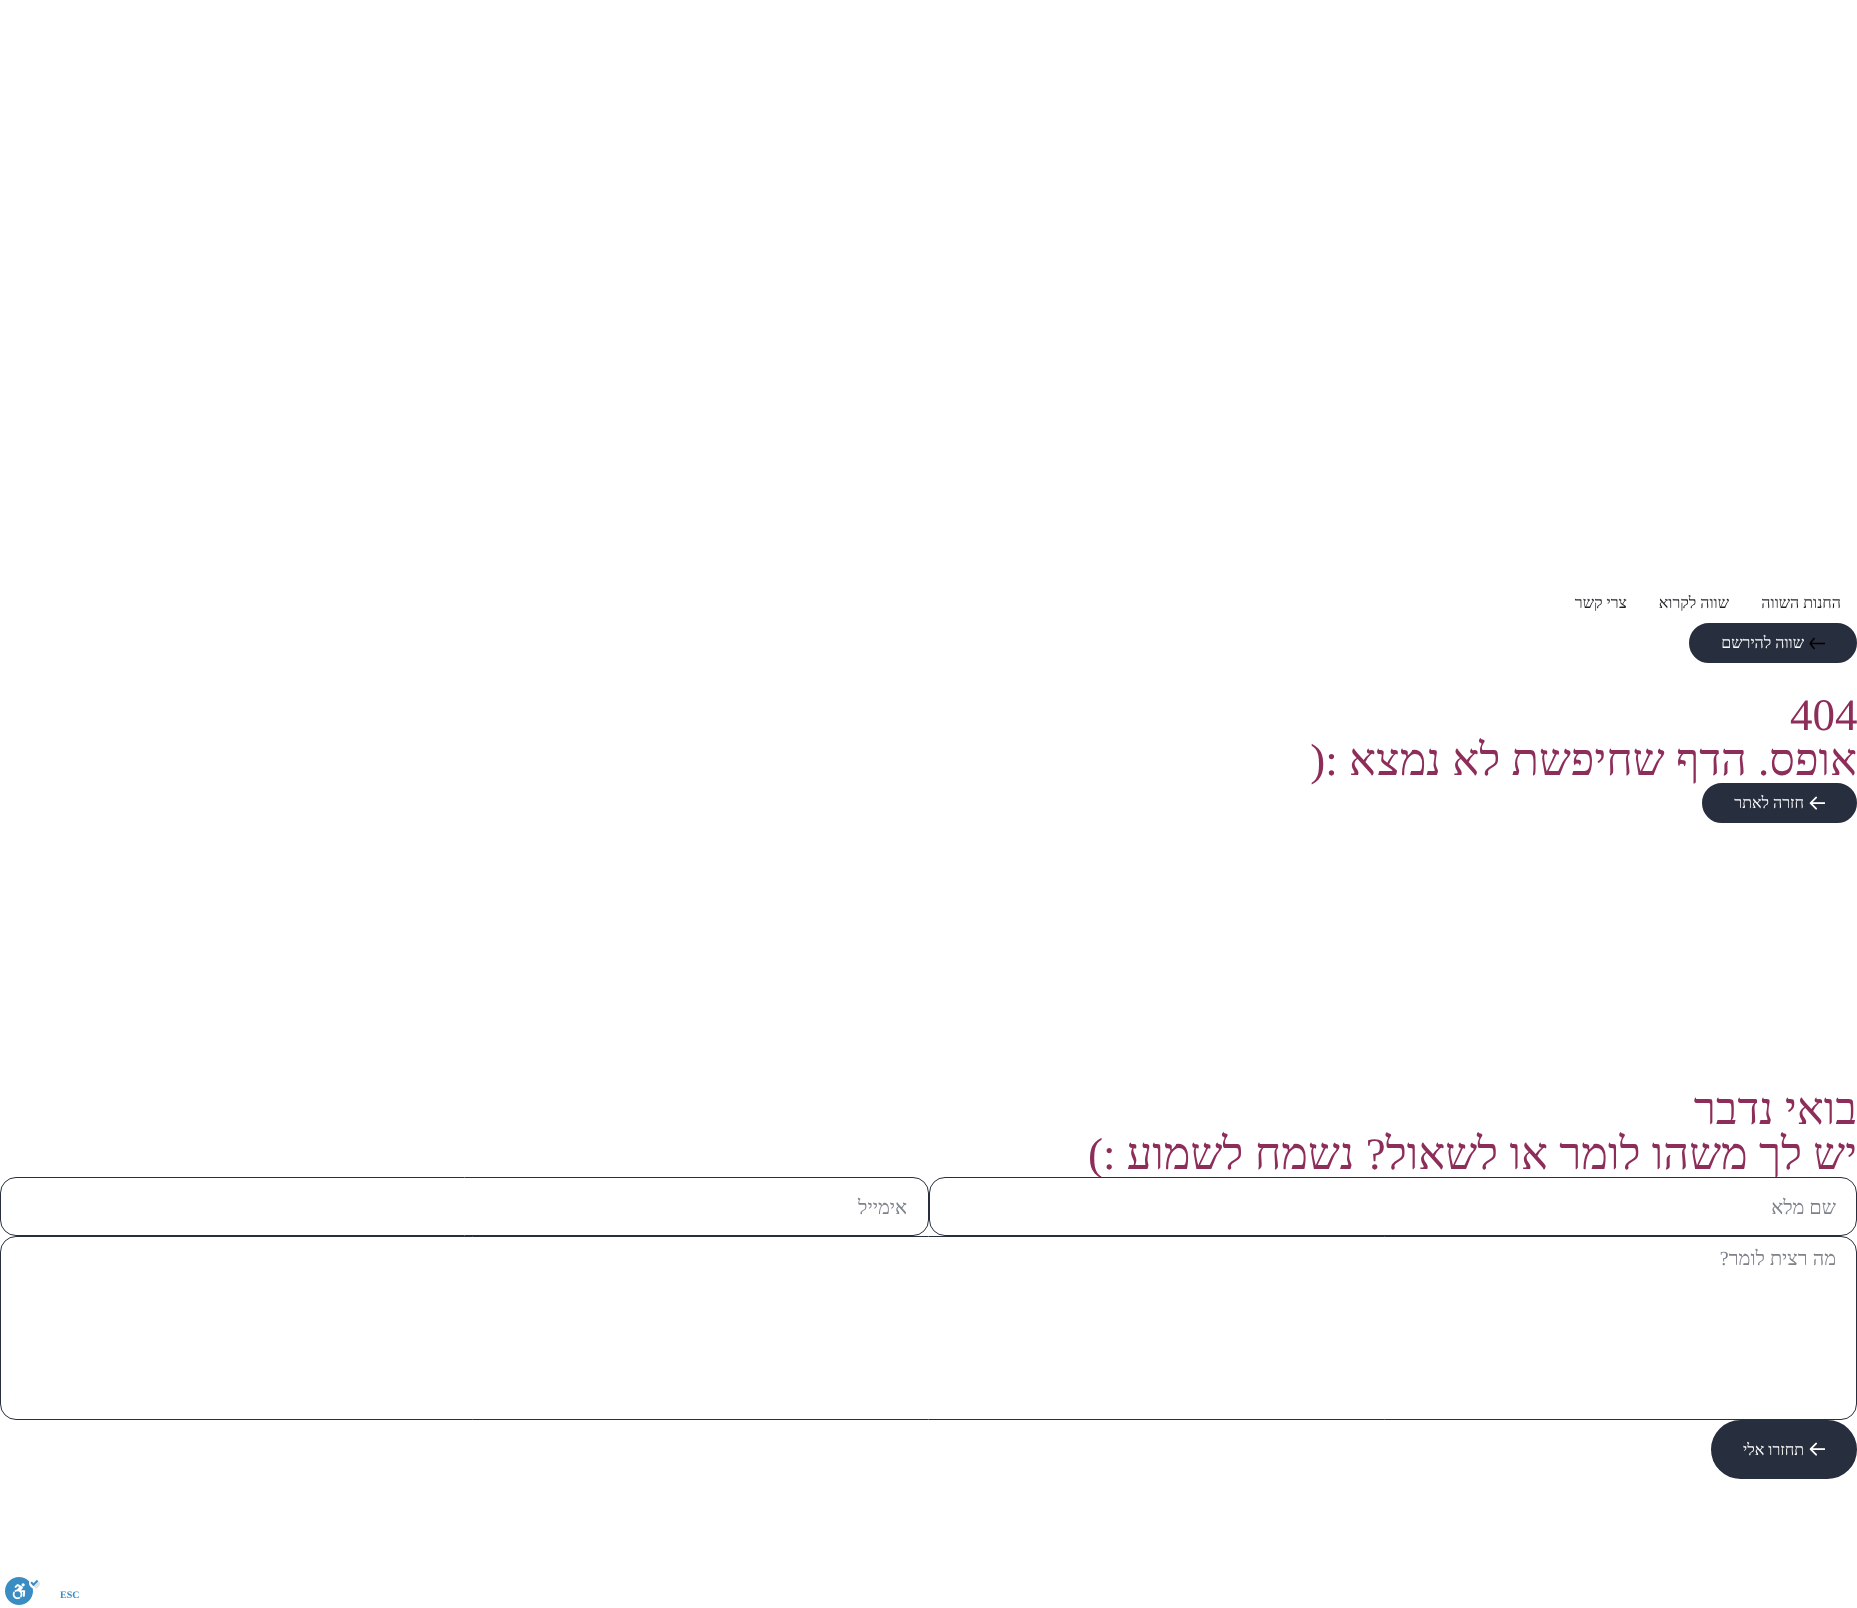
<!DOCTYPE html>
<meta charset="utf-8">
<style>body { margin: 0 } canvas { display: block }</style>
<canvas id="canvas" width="1857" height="1608"></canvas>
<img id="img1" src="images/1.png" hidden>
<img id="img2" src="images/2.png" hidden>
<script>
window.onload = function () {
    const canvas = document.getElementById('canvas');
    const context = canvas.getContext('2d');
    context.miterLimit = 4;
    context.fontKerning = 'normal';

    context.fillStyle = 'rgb(255, 255, 255)';
    context.fillRect(0, 0, 1857, 1608);
    context.fillStyle = 'rgb(39, 46, 61)';
    context.beginPath();
    context.roundRect(1690, 624, 166, 38, 19);
    context.fill();
    context.strokeStyle = 'rgb(39, 46, 61)';
    context.lineWidth = 2;
    context.stroke();
    context.beginPath();
    context.moveTo(1825, 643.5);
    context.lineTo(1810, 643.5);
    context.moveTo(1810, 643.5);
    context.lineTo(1814.5, 638);
    context.moveTo(1810, 643.5);
    context.lineTo(1814.5, 649);
    context.strokeStyle = 'rgb(0, 0, 0)';
    context.lineWidth = 1.5;
    context.stroke();
    context.beginPath();
    context.roundRect(0.5, 1177.5, 928, 58, 15.5);
    context.strokeStyle = 'rgb(39, 46, 61)';
    context.lineWidth = 1;
    context.stroke();
    context.beginPath();
    context.roundRect(0.5, 1236.5, 1856, 183, 15.5);
    context.stroke();
    context.beginPath();
    context.roundRect(1712, 1421, 144, 57, 28.5);
    context.fill();
    context.lineWidth = 2;
    context.stroke();
    context.drawImage(document.getElementById('img1'), 1809, 1442, 16, 14);
    context.drawImage(document.getElementById('img2'), 5, 1577, 35, 28);
    context.direction = 'rtl';
    context.font = '16px Liberation Serif';
    context.fillStyle = 'rgb(31, 33, 36)';
    context.fillText('החנות השווה', 1841, 608);
    context.fillText('שווה לקרוא', 1729, 608);
    context.fillText('צרי קשר', 1627, 608);
    context.fillStyle = 'rgb(255, 255, 255)';
    context.fillText('שווה להירשם', 1804, 648);
    context.direction = 'ltr';
    context.font = '45px Liberation Serif';
    context.fillStyle = 'rgb(141, 45, 89)';
    context.fillText('404', 1790, 730);
    context.direction = 'rtl';
    context.fillText('אופס. הדף שחיפשת לא נמצא :(', 1857, 775);
    context.fillStyle = 'rgb(39, 46, 61)';
    context.beginPath();
    context.roundRect(1703, 784, 153, 38, 19);
    context.fill();
    context.stroke();
    context.drawImage(document.getElementById('img1'), 1809, 796, 16, 14);
    context.font = '16px Liberation Serif';
    context.fillStyle = 'rgb(255, 255, 255)';
    context.fillText('חזרה לאתר', 1804, 808);
    context.font = '45px Liberation Serif';
    context.fillStyle = 'rgb(141, 45, 89)';
    context.fillText('בואי נדבר', 1857, 1124);
    context.fillText('יש לך משהו לומר או לשאול? נשמח לשמוע :)', 1857, 1169);
    context.fillStyle = 'rgb(255, 255, 255)';
    context.beginPath();
    context.roundRect(929.5, 1177.5, 927, 58, 15.5);
    context.fill();
    context.lineWidth = 1;
    context.stroke();
    context.font = '20px Liberation Serif';
    context.fillStyle = 'rgb(125, 130, 139)';
    context.fillText('שם מלא', 1836, 1214);
    context.fillText('אימייל', 907, 1214);
    context.fillText('מה רצית לומר?', 1836, 1265);
    context.font = '16px Liberation Serif';
    context.fillStyle = 'rgb(255, 255, 255)';
    context.fillText('תחזרו אלי', 1804, 1455);
    context.direction = 'ltr';
    context.font = 'bold 10px Liberation Serif';
    context.fillStyle = 'rgb(58, 141, 194)';
    context.fillText('ESC', 60, 1598);
};
</script>
